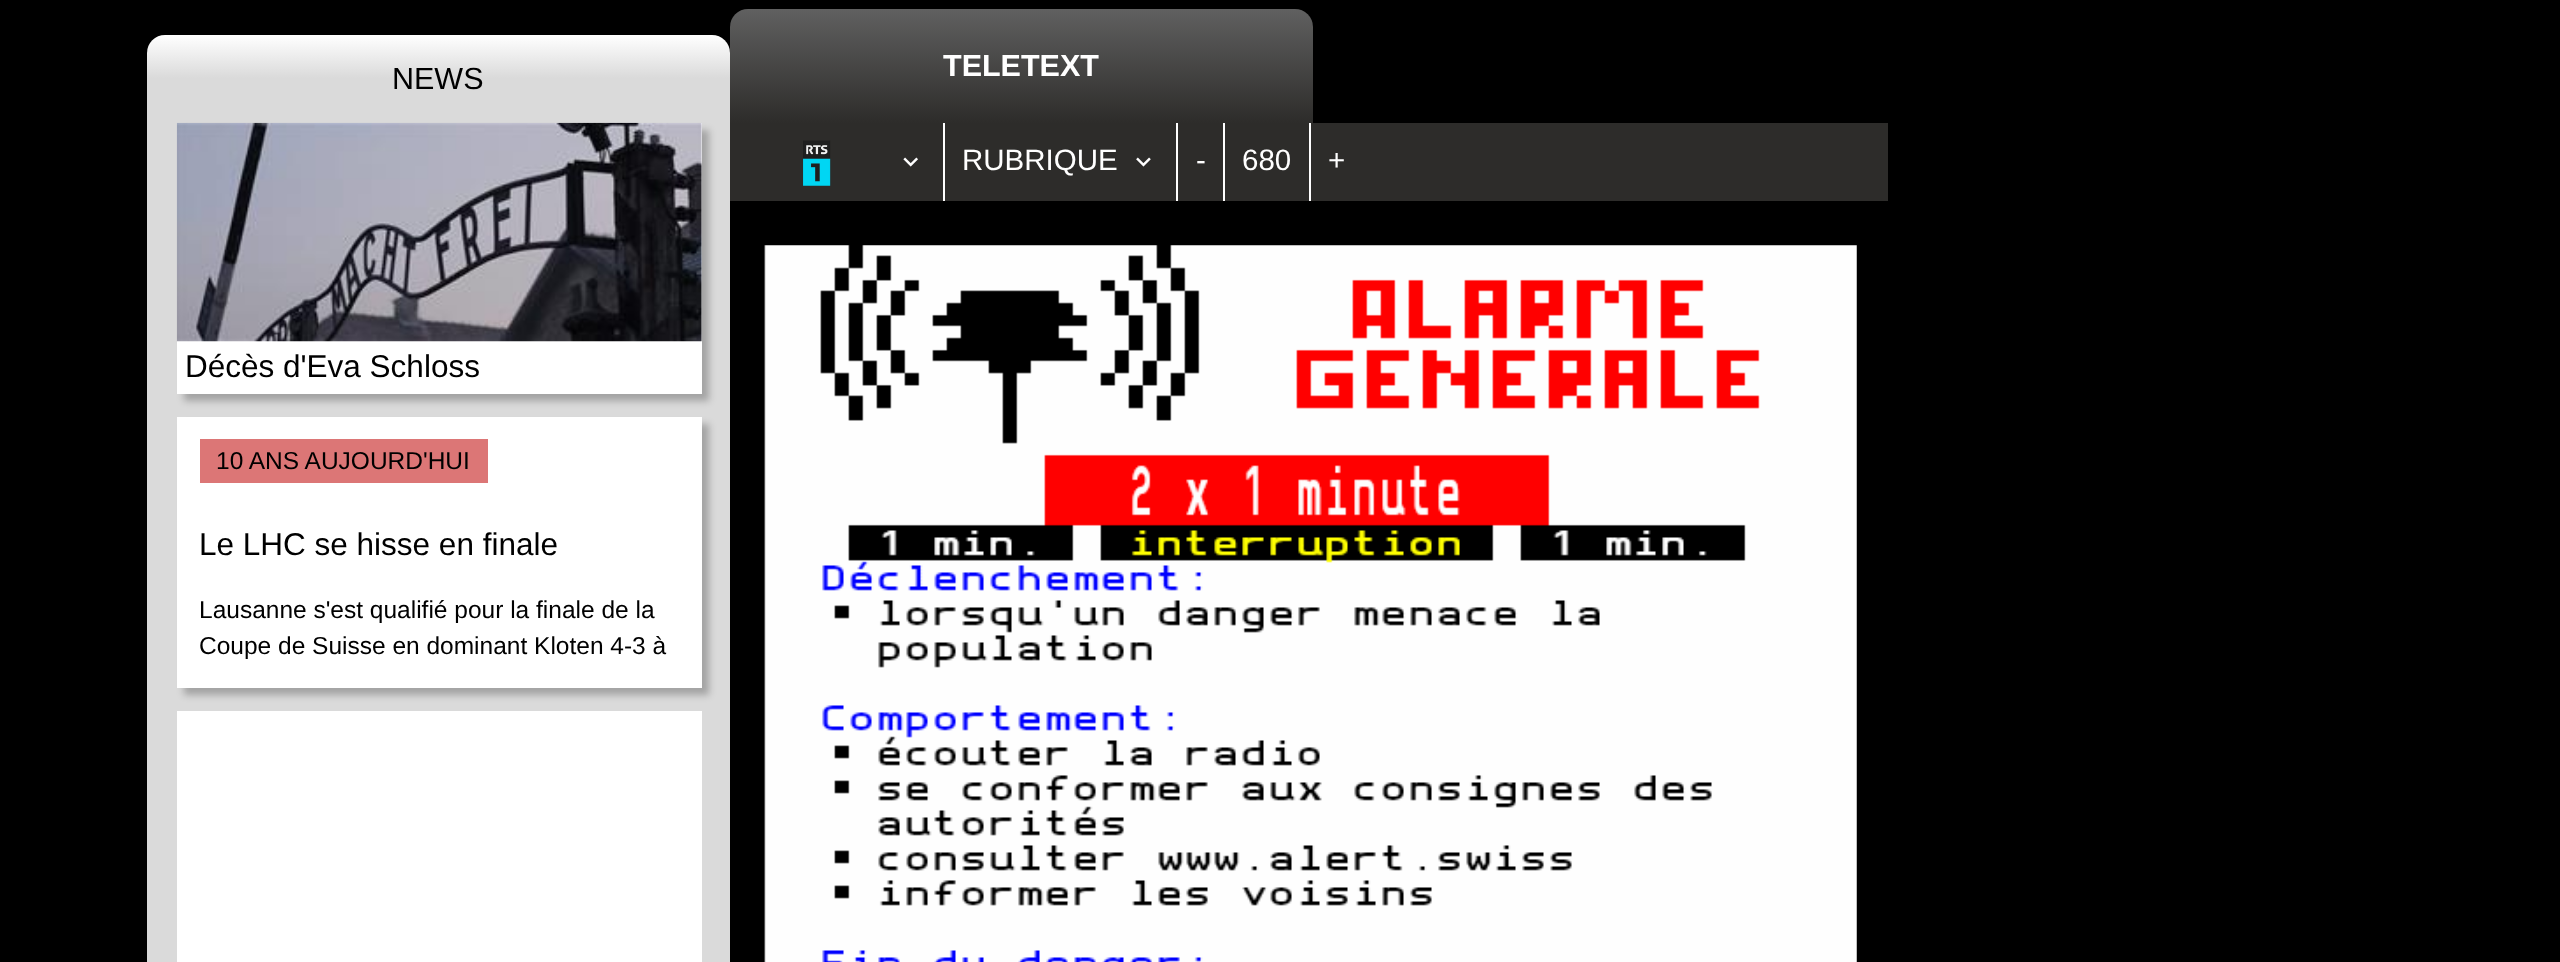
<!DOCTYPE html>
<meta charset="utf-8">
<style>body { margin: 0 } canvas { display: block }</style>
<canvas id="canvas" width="2560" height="962"></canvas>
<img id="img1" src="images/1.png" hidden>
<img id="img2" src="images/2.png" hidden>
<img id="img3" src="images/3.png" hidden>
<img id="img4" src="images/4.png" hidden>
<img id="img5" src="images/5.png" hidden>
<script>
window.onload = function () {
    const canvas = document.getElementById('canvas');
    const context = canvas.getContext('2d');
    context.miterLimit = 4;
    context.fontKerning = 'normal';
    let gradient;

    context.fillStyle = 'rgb(0, 0, 0)';
    context.fillRect(0, 0, 2560, 962);
    gradient = context.createLinearGradient(438, 123, 438, 35);
    gradient.addColorStop(0, 'rgb(218, 218, 218)');
    gradient.addColorStop(0.51, 'rgb(218, 218, 218)');
    gradient.addColorStop(1, 'rgb(255, 255, 255)');
    context.fillStyle = gradient;
    context.beginPath();
    context.roundRect(147, 35, 583, 88, [18, 18, 0, 0]);
    context.fill();
    gradient = context.createLinearGradient(1021, 123, 1021, 9);
    gradient.addColorStop(0, 'rgb(45, 44, 42)');
    gradient.addColorStop(1, 'rgb(96, 96, 96)');
    context.fillStyle = gradient;
    context.beginPath();
    context.roundRect(730, 9, 583, 114, [18, 18, 0, 0]);
    context.fill();
    context.fillStyle = 'rgb(45, 44, 42)';
    context.fillRect(730, 123, 1158, 78);
    context.fillStyle = 'rgb(255, 255, 255)';
    context.fillRect(943, 123, 2, 78);
    context.drawImage(document.getElementById('img1'), 803, 140, 28, 46);
    context.drawImage(document.getElementById('img2'), 903, 157, 15, 10);
    context.fillRect(1176, 123, 2, 78);
    context.drawImage(document.getElementById('img3'), 1136, 157, 15, 10);
    context.fillRect(1223, 123, 2, 78);
    context.fillRect(1309, 123, 2, 78);
    context.drawImage(document.getElementById('img4'), 764, 245, 1093, 717);
    context.fillStyle = 'rgb(218, 218, 218)';
    context.fillRect(147, 123, 583, 839);
    context.fillStyle = 'rgba(0, 0, 0, 0.25)';
    context.filter = 'blur(3.5px)';
    context.beginPath();
    context.rect(184, 130, 525, 271);
    context.fill();
    context.filter = 'none';
    context.fillStyle = 'rgb(255, 255, 255)';
    context.fillRect(177, 123, 525, 271);
    context.drawImage(document.getElementById('img5'), 176, 122, 526, 220);
    context.fillStyle = 'rgba(0, 0, 0, 0.25)';
    context.filter = 'blur(3.5px)';
    context.beginPath();
    context.rect(184, 424, 525, 271);
    context.fill();
    context.filter = 'none';
    context.fillStyle = 'rgb(255, 255, 255)';
    context.fillRect(177, 417, 525, 271);
    context.fillStyle = 'rgb(220, 118, 118)';
    context.fillRect(200, 439, 288, 44);
    context.fillStyle = 'rgb(255, 255, 255)';
    context.fillRect(177, 711, 525, 251);
    context.font = '30.5px Liberation Sans';
    context.fillStyle = 'rgb(0, 0, 0)';
    context.fillText('NEWS', 392, 89);
    context.font = 'bold 30.5px Liberation Sans';
    context.fillStyle = 'rgb(255, 255, 255)';
    context.fillText('TELETEXT', 943, 76);
    context.font = '29.5px Liberation Sans';
    context.fillText('RUBRIQUE', 962, 170);
    context.fillText('-', 1196, 170);
    context.fillText('680', 1242, 170);
    context.fillText('+', 1328, 170);
    context.font = '31.5px Liberation Sans';
    context.fillStyle = 'rgb(0, 0, 0)';
    context.fillText('Décès d\'Eva Schloss', 185, 377);
    context.font = '24.5px Liberation Sans';
    context.fillText('10 ANS AUJOURD\'HUI', 216, 469);
    context.font = '31.5px Liberation Sans';
    context.fillText('Le LHC se hisse en finale', 199, 555);
    context.font = '24.5px Liberation Sans';
    context.fillText('Lausanne s\'est qualifié pour la finale de la', 199, 618);
    context.fillText('Coupe de Suisse en dominant Kloten 4-3 à', 199, 654);
};
</script>
